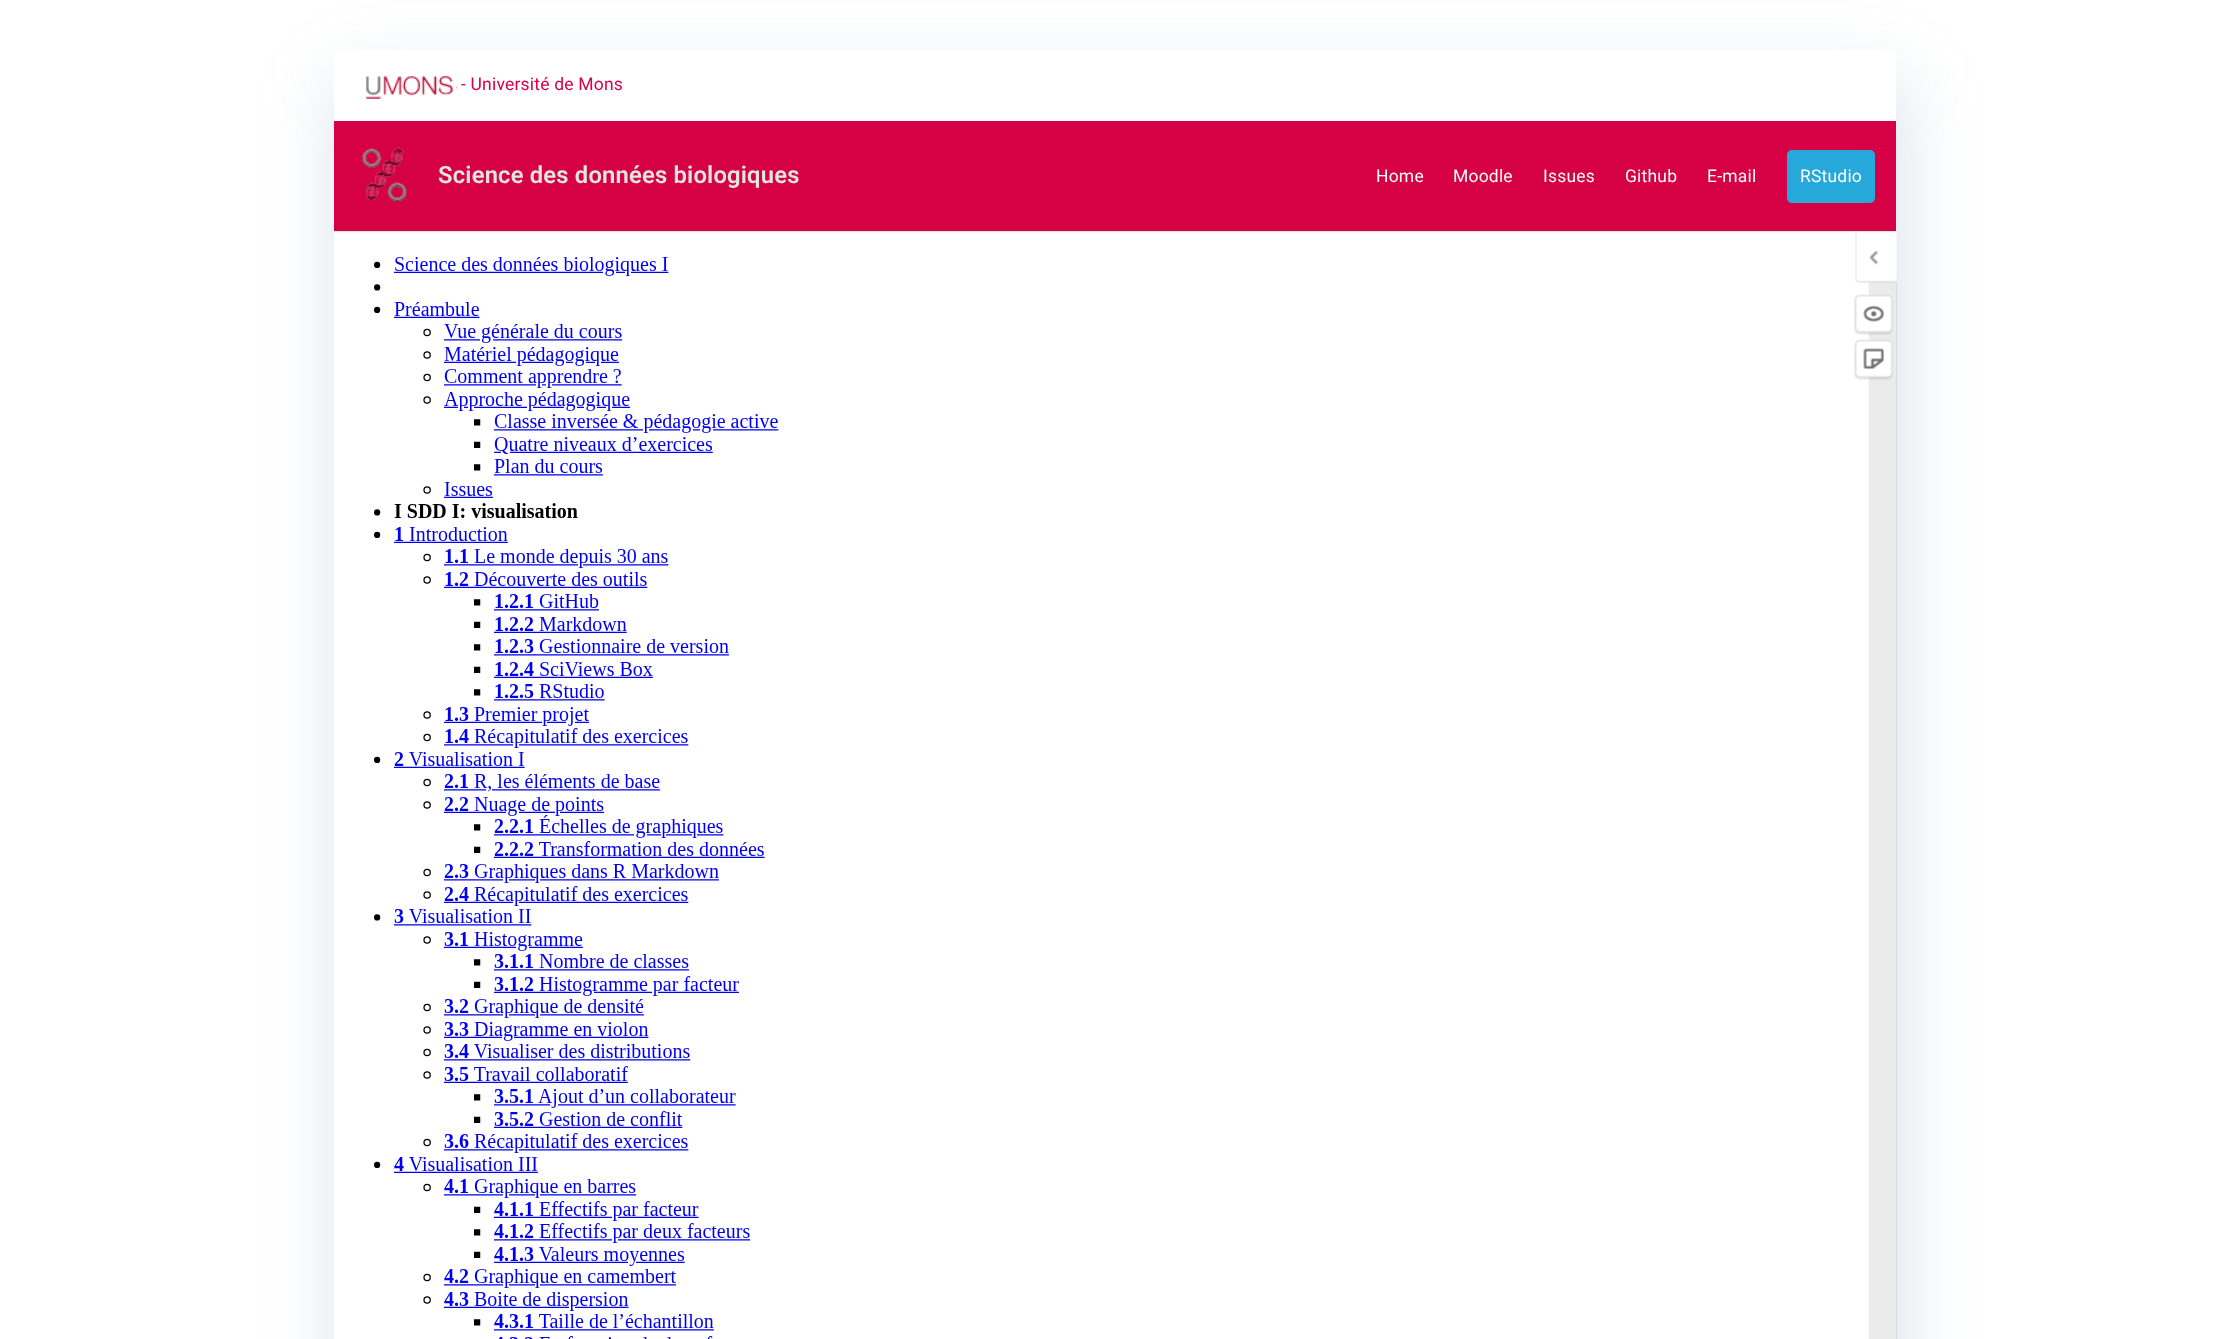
<!DOCTYPE html>
<meta charset="utf-8">
<style>body { margin: 0 } canvas { display: block }</style>
<canvas id="canvas" width="2228" height="1339"></canvas>
<img id="img1" src="images/1.png" hidden>
<img id="img2" src="images/2.png" hidden>
<img id="img3" src="images/3.png" hidden>
<script>
window.onload = function () {
    const canvas = document.getElementById('canvas');
    const context = canvas.getContext('2d');
    context.miterLimit = 4;
    context.fontKerning = 'normal';

    context.fillStyle = 'rgb(255, 255, 255)';
    context.fillRect(0, 0, 2228, 1339);
    context.fillStyle = 'rgba(109, 141, 173, 0.25)';
    context.filter = 'blur(37.5px)';
    context.beginPath();
    context.rect(339, 80, 1562, 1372);
    context.fill();
    context.filter = 'none';
    context.fillStyle = 'rgb(250, 250, 250)';
    context.fillRect(334, 232, 1562, 1);
    context.fillStyle = 'rgb(228, 228, 231)';
    context.fillRect(334, 231, 1562, 1);
    context.fillStyle = 'rgb(255, 255, 255)';
    context.fillRect(334, 50, 1562, 71);
    context.drawImage(document.getElementById('img1'), 366, 76, 92, 23);
    context.fillStyle = 'rgb(214, 0, 68)';
    context.fillRect(334, 121, 1562, 110);
    context.drawImage(document.getElementById('img2'), 362, 147, 45, 55);
    context.fillStyle = 'rgb(39, 168, 219)';
    context.beginPath();
    context.roundRect(1786.5, 149.5, 89, 54, 5.5);
    context.fill();
    context.strokeStyle = 'rgb(214, 0, 68)';
    context.stroke();
    context.fillStyle = 'rgb(255, 255, 255)';
    context.fillRect(334, 233, 1562, 1106);
    context.drawImage(document.getElementById('img3'), 374, 233, 1523, 1106);
    context.letterSpacing = '0.2px';
    context.font = '17.5px Roboto';
    context.fillStyle = 'rgb(214, 0, 68)';
    context.fillText('- Université de Mons', 461, 90);
    context.font = '600 23.75px Roboto';
    context.fillStyle = 'rgb(229, 229, 229)';
    context.fillText('Science des données biologiques', 438, 183);
    context.font = '17.5px Roboto';
    context.fillStyle = 'rgb(250, 250, 250)';
    context.fillText('Home', 1376, 182);
    context.fillText('Moodle', 1453, 182);
    context.fillText('Issues', 1543, 182);
    context.fillText('Github', 1625, 182);
    context.fillText('E-mail', 1707, 182);
    context.fillText('RStudio', 1800, 182);
};
</script>
